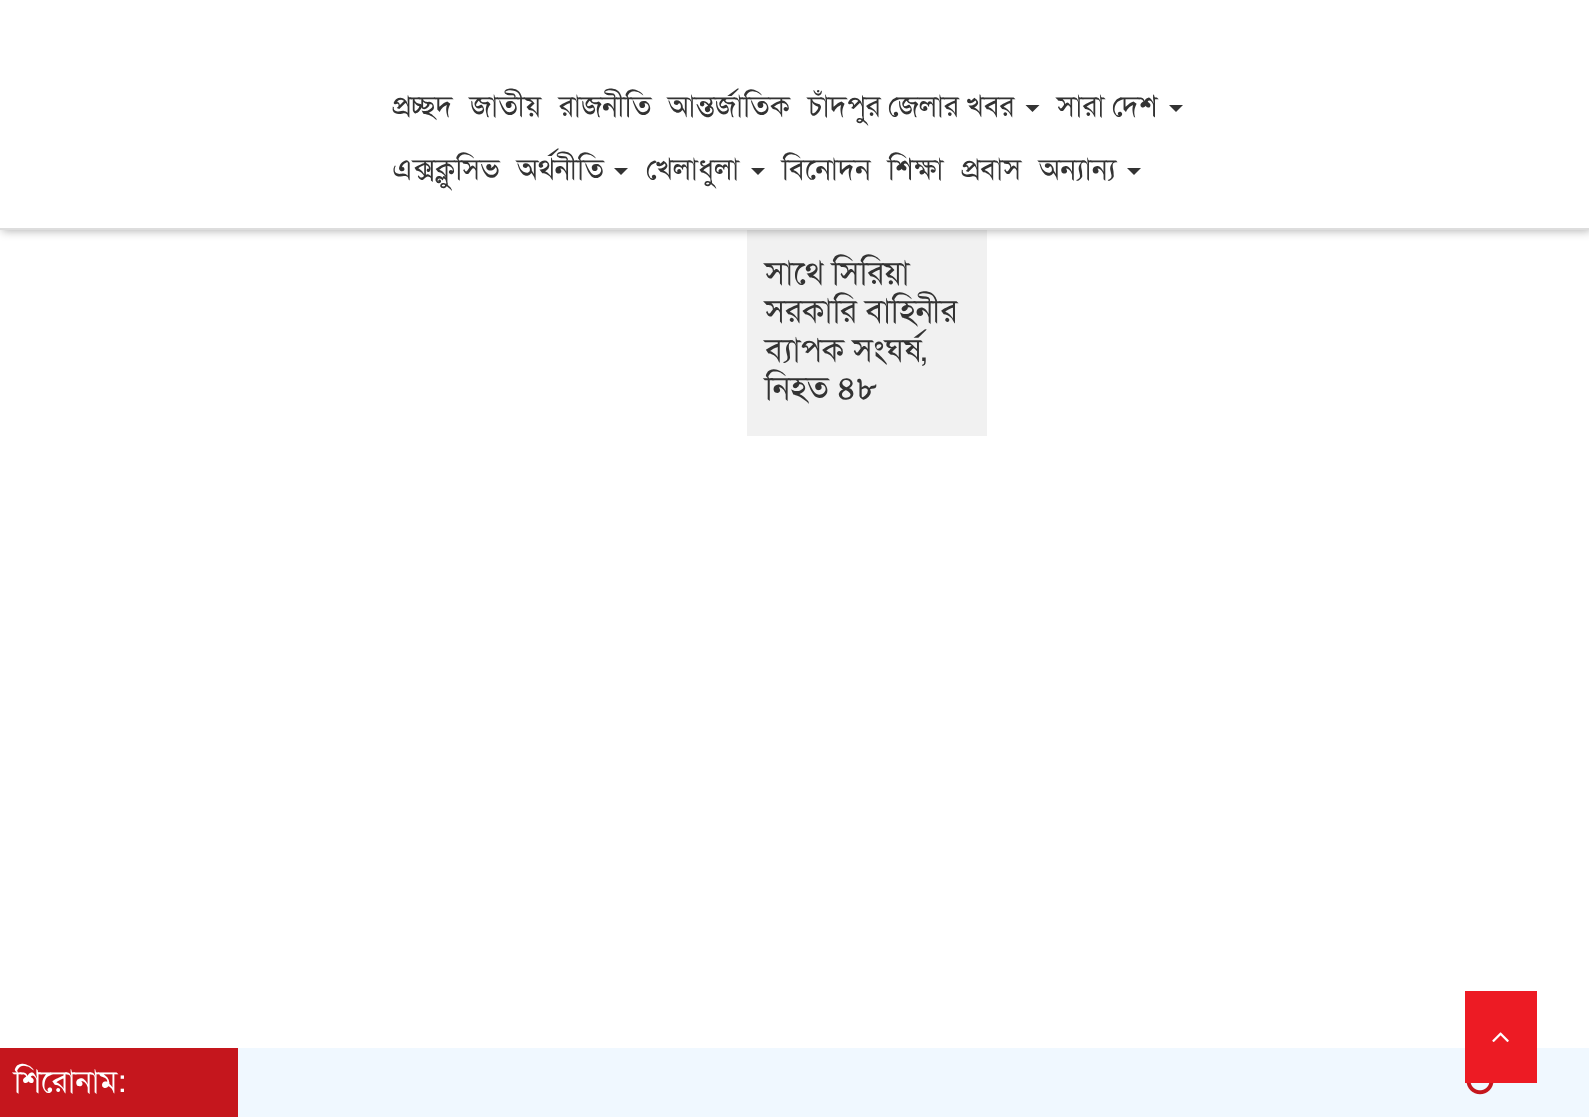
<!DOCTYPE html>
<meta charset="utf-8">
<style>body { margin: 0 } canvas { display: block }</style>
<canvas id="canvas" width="1589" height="1117"></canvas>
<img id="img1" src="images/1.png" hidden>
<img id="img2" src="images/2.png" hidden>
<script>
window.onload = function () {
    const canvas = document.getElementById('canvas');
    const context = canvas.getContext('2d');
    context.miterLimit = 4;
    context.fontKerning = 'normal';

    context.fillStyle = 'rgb(255, 255, 255)';
    context.fillRect(0, 0, 1589, 1117);
    context.fillStyle = 'rgb(241, 241, 241)';
    context.fillRect(747, 230, 240, 206);
    context.fillStyle = 'rgba(0, 0, 0, 0.3)';
    context.filter = 'blur(5px)';
    context.beginPath();
    context.rect(2, 2, 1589, 229);
    context.fill();
    context.filter = 'none';
    context.fillStyle = 'rgb(255, 255, 255)';
    context.fillRect(0, 0, 1589, 228);
    context.fillStyle = 'rgb(221, 221, 221)';
    context.fillRect(0, 228, 1589, 2);
    context.fillStyle = 'rgb(51, 51, 51)';
    context.beginPath();
    context.moveTo(1025.5, 105);
    context.lineTo(1039.5, 105);
    context.lineTo(1032.5, 112);
    context.closePath();
    context.fill();
    context.beginPath();
    context.moveTo(1169, 105);
    context.lineTo(1183, 105);
    context.lineTo(1176, 112);
    context.closePath();
    context.fill();
    context.beginPath();
    context.moveTo(614, 168);
    context.lineTo(628, 168);
    context.lineTo(621, 175);
    context.closePath();
    context.fill();
    context.beginPath();
    context.moveTo(751, 168);
    context.lineTo(765, 168);
    context.lineTo(758, 175);
    context.closePath();
    context.fill();
    context.beginPath();
    context.moveTo(1127, 168);
    context.lineTo(1141, 168);
    context.lineTo(1134, 175);
    context.closePath();
    context.fill();
    context.fillStyle = 'rgb(240, 248, 255)';
    context.fillRect(238, 1048, 1351, 69);
    context.fillStyle = 'rgb(197, 22, 29)';
    context.fillRect(0, 1048, 238, 69);
    context.drawImage(document.getElementById('img1'), 1466, 1083, 28, 12);
    context.fillStyle = 'rgb(237, 27, 36)';
    context.fillRect(1465, 991, 72, 92);
    context.drawImage(document.getElementById('img2'), 1492, 1032, 17, 10);
    context.font = '29.75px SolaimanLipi';
    context.fillStyle = 'rgb(51, 51, 51)';
    context.fillText('প্রচ্ছদ', 392, 116);
    context.fillText('জাতীয়', 470, 116);
    context.fillText('রাজনীতি', 559, 116);
    context.fillText('আন্তর্জাতিক', 668, 116);
    context.fillText('চাঁদপুর জেলার খবর', 808, 116);
    context.fillText('সারা দেশ', 1057, 116);
    context.fillText('এক্সক্লুসিভ', 392, 179);
    context.fillText('অর্থনীতি', 517, 179);
    context.fillText('খেলাধুলা', 646, 179);
    context.fillText('বিনোদন', 782, 179);
    context.fillText('শিক্ষা', 888, 179);
    context.fillText('প্রবাস', 961, 179);
    context.fillText('অন্যান্য', 1039, 179);
    context.font = '33.25px SolaimanLipi';
    context.fillText('সাথে সিরিয়া', 765, 284);
    context.fillText('সরকারি বাহিনীর', 765, 322);
    context.fillText('ব্যাপক সংঘর্ষ,', 765, 361);
    context.fillText('নিহত ৪৮', 765, 399);
    context.font = '31.5px SolaimanLipi';
    context.fillStyle = 'rgb(255, 255, 255)';
    context.fillText('শিরোনাম:', 14, 1092);
};
</script>
